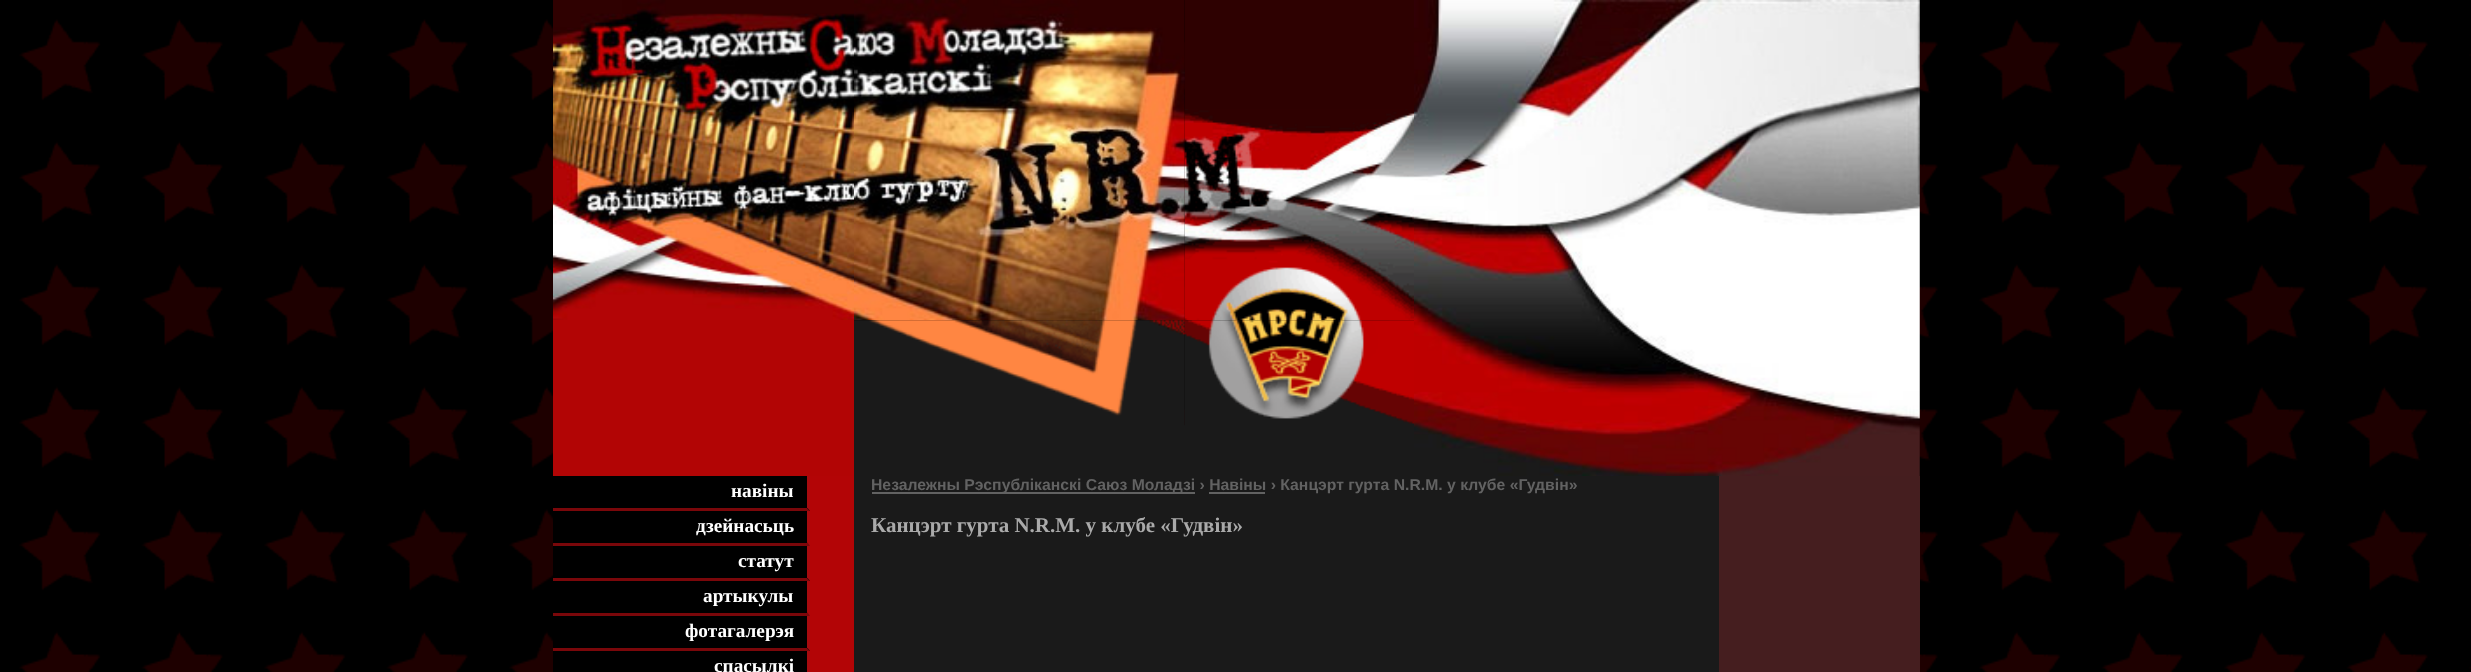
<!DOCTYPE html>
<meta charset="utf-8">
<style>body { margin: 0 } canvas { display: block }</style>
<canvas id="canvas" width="2471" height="672"></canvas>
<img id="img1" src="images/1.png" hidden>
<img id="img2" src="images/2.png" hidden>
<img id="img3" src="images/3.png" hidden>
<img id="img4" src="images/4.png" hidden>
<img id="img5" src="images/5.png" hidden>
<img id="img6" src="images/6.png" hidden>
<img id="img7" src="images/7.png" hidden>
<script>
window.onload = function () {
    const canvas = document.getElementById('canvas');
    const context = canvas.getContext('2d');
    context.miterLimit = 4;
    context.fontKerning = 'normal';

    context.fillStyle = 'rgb(255, 255, 255)';
    context.fillRect(0, 0, 2471, 672);
    context.drawImage(document.getElementById('img1'), 0, 0, 2471, 672);
    context.drawImage(document.getElementById('img2'), 553, 0, 301, 320);
    context.fillStyle = 'rgb(178, 5, 5)';
    context.fillRect(553, 320, 301, 156);
    context.drawImage(document.getElementById('img3'), 854, 0, 331, 321);
    context.drawImage(document.getElementById('img4'), 854, 320, 331, 105);
    context.fillStyle = 'rgb(26, 26, 26)';
    context.fillRect(854, 425, 331, 51);
    context.fillStyle = 'rgb(46, 1, 1)';
    context.fillRect(1185, 0, 229, 109);
    context.drawImage(document.getElementById('img5'), 1184, 109, 230, 212);
    context.drawImage(document.getElementById('img6'), 1184, 320, 230, 106);
    context.fillStyle = 'rgb(26, 26, 26)';
    context.fillRect(1185, 425, 229, 51);
    context.drawImage(document.getElementById('img7'), 1414, 0, 506, 476);
    context.fillStyle = 'rgb(179, 5, 6)';
    context.fillRect(807, 476, 47, 196);
    context.fillStyle = 'rgb(0, 0, 0)';
    context.fillRect(668, 476, 142, 35);
    context.fillStyle = 'rgb(167, 10, 14)';
    context.beginPath();
    context.moveTo(810, 476);
    context.lineTo(810, 511);
    context.lineTo(807, 507.5);
    context.lineTo(807, 476);
    context.closePath();
    context.fill();
    context.fillStyle = 'rgb(122, 7, 10)';
    context.beginPath();
    context.moveTo(810, 511);
    context.lineTo(553, 511);
    context.lineTo(553, 508);
    context.lineTo(807, 508);
    context.closePath();
    context.fill();
    context.fillStyle = 'rgb(167, 10, 14)';
    context.beginPath();
    context.moveTo(810, 511);
    context.lineTo(810, 546);
    context.lineTo(807, 542.5);
    context.lineTo(807, 511);
    context.closePath();
    context.fill();
    context.fillStyle = 'rgb(122, 7, 10)';
    context.beginPath();
    context.moveTo(810, 546);
    context.lineTo(553, 546);
    context.lineTo(553, 542);
    context.lineTo(807, 542);
    context.closePath();
    context.fill();
    context.fillStyle = 'rgb(0, 0, 0)';
    context.fillRect(553, 511, 254, 32);
    context.fillRect(553, 546, 257, 35);
    context.fillStyle = 'rgb(167, 10, 14)';
    context.beginPath();
    context.moveTo(810, 546);
    context.lineTo(810, 581);
    context.lineTo(807, 577.5);
    context.lineTo(807, 546);
    context.closePath();
    context.fill();
    context.fillStyle = 'rgb(122, 7, 10)';
    context.beginPath();
    context.moveTo(810, 581);
    context.lineTo(553, 581);
    context.lineTo(553, 578);
    context.lineTo(807, 578);
    context.closePath();
    context.fill();
    context.fillStyle = 'rgb(167, 10, 14)';
    context.beginPath();
    context.moveTo(810, 581);
    context.lineTo(810, 616);
    context.lineTo(807, 612.5);
    context.lineTo(807, 581);
    context.closePath();
    context.fill();
    context.fillStyle = 'rgb(122, 7, 10)';
    context.beginPath();
    context.moveTo(810, 616);
    context.lineTo(553, 616);
    context.lineTo(553, 612);
    context.lineTo(807, 612);
    context.closePath();
    context.fill();
    context.fillStyle = 'rgb(0, 0, 0)';
    context.fillRect(553, 581, 254, 32);
    context.fillRect(553, 616, 257, 35);
    context.fillStyle = 'rgb(167, 10, 14)';
    context.beginPath();
    context.moveTo(810, 616);
    context.lineTo(810, 651);
    context.lineTo(807, 647.5);
    context.lineTo(807, 616);
    context.closePath();
    context.fill();
    context.fillStyle = 'rgb(122, 7, 10)';
    context.beginPath();
    context.moveTo(810, 651);
    context.lineTo(553, 651);
    context.lineTo(553, 648);
    context.lineTo(807, 648);
    context.closePath();
    context.fill();
    context.fillStyle = 'rgb(0, 0, 0)';
    context.fillRect(553, 651, 254, 21);
    context.fillStyle = 'rgb(167, 10, 14)';
    context.beginPath();
    context.moveTo(810, 651);
    context.lineTo(810, 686);
    context.lineTo(807, 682.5);
    context.lineTo(807, 651);
    context.closePath();
    context.fill();
    context.fillStyle = 'rgb(26, 26, 26)';
    context.fillRect(854, 476, 865, 196);
    context.fillStyle = 'rgb(98, 98, 98)';
    context.fillRect(872, 492, 323, 2);
    context.fillRect(1209, 492, 56, 2);
    context.fillStyle = 'rgb(69, 30, 31)';
    context.fillRect(1719, 476, 201, 196);
    context.font = 'bold 19.25px Liberation Serif';
    context.fillStyle = 'rgb(255, 255, 255)';
    context.fillText('навіны', 731, 497);
    context.fillText('дзейнасьць', 696, 532);
    context.fillText('статут', 738, 567);
    context.fillText('артыкулы', 703, 602);
    context.fillText('фотагалерэя', 685, 637);
    context.fillText('спасылкі', 714, 672);
    context.font = 'bold 15.75px Liberation Sans';
    context.fillStyle = 'rgb(98, 98, 98)';
    context.fillText('Незалежны Рэспубліканскі Саюз Моладзі › Навіны › Канцэрт гурта N.R.M. у клубе «Гудвін»', 871, 490);
    context.font = 'bold 21px Liberation Serif';
    context.fillStyle = 'rgb(170, 170, 170)';
    context.fillText('Канцэрт гурта N.R.M. у клубе «Гудвін»', 871, 532);
};
</script>
